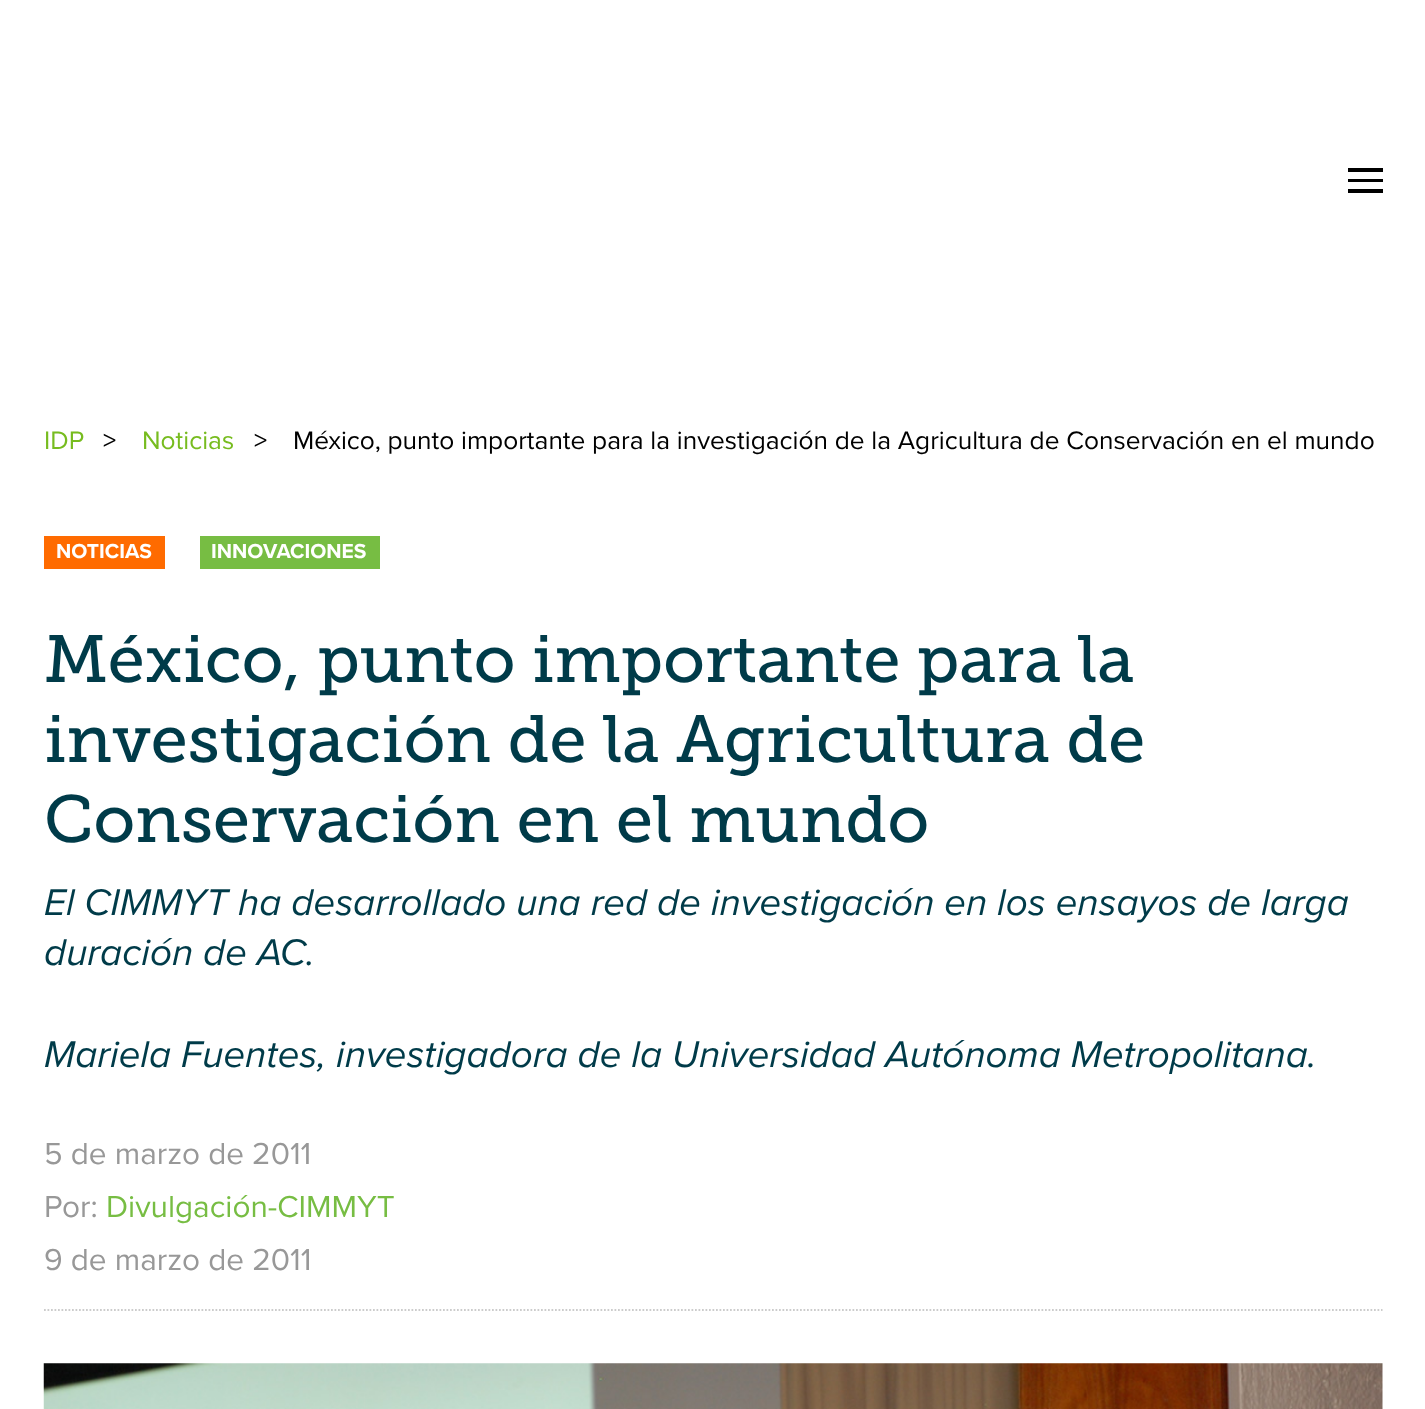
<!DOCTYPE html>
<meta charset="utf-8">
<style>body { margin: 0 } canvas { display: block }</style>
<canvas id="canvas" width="1425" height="1409"></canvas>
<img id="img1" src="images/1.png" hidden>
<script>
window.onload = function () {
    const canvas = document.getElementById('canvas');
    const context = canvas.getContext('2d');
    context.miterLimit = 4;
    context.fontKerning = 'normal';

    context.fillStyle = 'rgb(255, 255, 255)';
    context.fillRect(0, 0, 1425, 1409);
    context.fillStyle = 'rgb(0, 0, 0)';
    context.fillRect(1348, 168, 35, 4);
    context.fillRect(1348, 179, 35, 3);
    context.fillRect(1348, 189, 35, 4);
    context.fillStyle = 'rgb(255, 107, 0)';
    context.fillRect(44, 536, 121, 33);
    context.fillStyle = 'rgb(119, 189, 67)';
    context.fillRect(200, 536, 180, 33);
    context.beginPath();
    context.moveTo(44, 1310);
    context.lineTo(1382.5, 1310);
    context.strokeStyle = 'rgb(204, 204, 204)';
    context.lineWidth = 1.8;
    context.setLineDash([1.75, 1.75]);
    context.stroke();
    context.drawImage(document.getElementById('img1'), 43, 1363, 1340, 46);
    context.font = '26.25px Proxima Nova';
    context.fillStyle = 'rgb(119, 188, 31)';
    context.fillText('IDP', 44, 449);
    context.fillStyle = 'rgb(0, 0, 0)';
    context.fillText('>', 103, 449);
    context.fillStyle = 'rgb(119, 188, 31)';
    context.fillText('Noticias', 142, 449);
    context.fillStyle = 'rgb(0, 0, 0)';
    context.fillText('>', 254, 449);
    context.fillText('México, punto importante para la investigación de la Agricultura de Conservación en el mundo', 293, 449);
    context.font = 'bold 21px Proxima Nova';
    context.fillStyle = 'rgb(255, 255, 255)';
    context.fillText('NOTICIAS', 56, 558);
    context.fillText('INNOVACIONES', 211, 558);
    context.font = '66.5px "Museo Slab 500"';
    context.fillStyle = 'rgb(0, 59, 73)';
    context.fillText('México, punto importante para la', 44, 682);
    context.fillText('investigación de la Agricultura de', 44, 762);
    context.fillText('Conservación en el mundo', 44, 842);
    context.font = 'italic 38.5px Proxima Nova';
    context.fillText('El CIMMYT ha desarrollado una red de investigación en los ensayos de larga', 44, 915);
    context.fillText('duración de AC.', 44, 965);
    context.fillText('Mariela Fuentes, investigadora de la Universidad Autónoma Metropolitana.', 44, 1067);
    context.font = '31.5px Proxima Nova';
    context.fillStyle = 'rgb(152, 152, 152)';
    context.fillText('5 de marzo de 2011', 44, 1164);
    context.fillText('Por:', 44, 1217);
    context.fillStyle = 'rgb(119, 189, 67)';
    context.fillText('Divulgación-CIMMYT', 106, 1217);
    context.fillStyle = 'rgb(152, 152, 152)';
    context.fillText('9 de marzo de 2011', 44, 1270);
};
</script>
